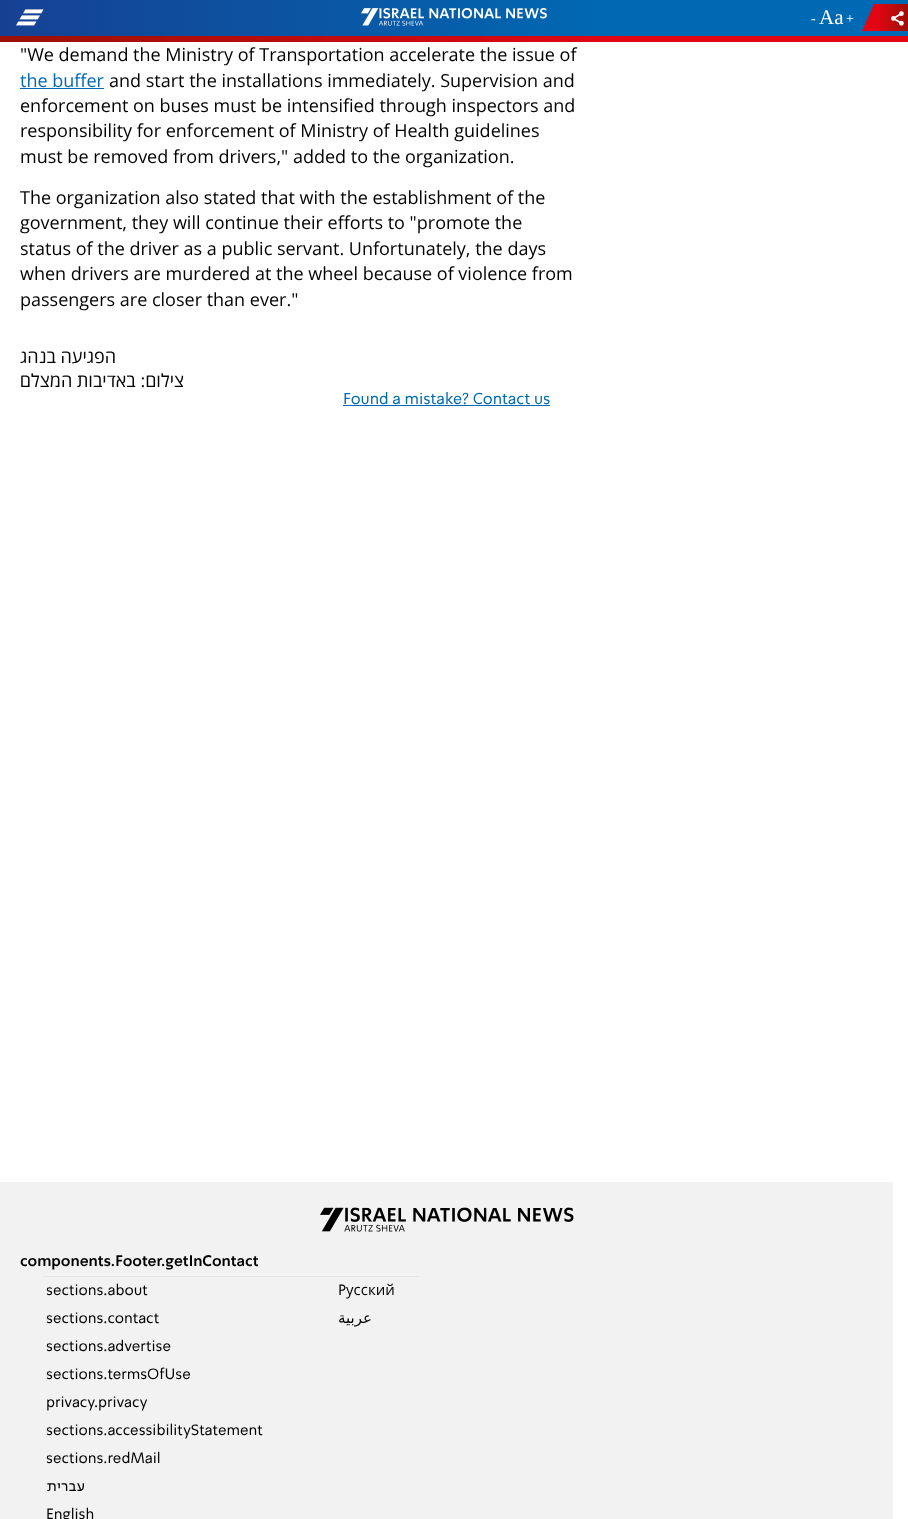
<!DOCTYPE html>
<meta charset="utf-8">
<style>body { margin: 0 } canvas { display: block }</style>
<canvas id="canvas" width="908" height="1519"></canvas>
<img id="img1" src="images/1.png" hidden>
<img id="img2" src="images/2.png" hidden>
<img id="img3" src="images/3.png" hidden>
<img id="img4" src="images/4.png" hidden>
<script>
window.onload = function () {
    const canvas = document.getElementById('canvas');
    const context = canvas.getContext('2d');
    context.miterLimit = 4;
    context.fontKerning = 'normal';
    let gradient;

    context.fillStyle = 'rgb(255, 255, 255)';
    context.fillRect(0, 0, 908, 1519);
    gradient = context.createLinearGradient(908, 18, 0, 18);
    gradient.addColorStop(0.32, 'rgb(0, 105, 179)');
    gradient.addColorStop(1, 'rgb(22, 65, 147)');
    context.fillStyle = gradient;
    context.fillRect(0, 0, 908, 36);
    context.drawImage(document.getElementById('img1'), 16, 9, 28, 17);
    context.drawImage(document.getElementById('img2'), 361, 8, 186, 18);
    gradient = context.createLinearGradient(862, 18, 908, 18);
    gradient.addColorStop(0.32, 'rgb(226, 6, 19)');
    gradient.addColorStop(1, 'rgb(155, 16, 6)');
    context.fillStyle = gradient;
    context.beginPath();
    context.moveTo(874, 4);
    context.lineTo(862, 31);
    context.lineTo(908, 31);
    context.lineTo(908, 4);
    context.closePath();
    context.fill();
    context.drawImage(document.getElementById('img3'), 891, 11, 13, 15);
    gradient = context.createLinearGradient(908, 38, 0, 39);
    gradient.addColorStop(0.32, 'rgb(226, 6, 19)');
    gradient.addColorStop(1, 'rgb(155, 16, 6)');
    context.fillStyle = gradient;
    context.fillRect(0, 36, 908, 6);
    context.fillStyle = 'rgb(0, 105, 179)';
    context.fillRect(20, 88, 84, 1);
    context.fillRect(343, 405, 207, 1);
    context.fillStyle = 'rgb(242, 242, 242)';
    context.fillRect(0, 1182, 893, 337);
    context.drawImage(document.getElementById('img4'), 320, 1207, 254, 25);
    context.fillStyle = 'rgb(230, 230, 230)';
    context.fillRect(43, 1276, 376, 1);
    context.font = '14px Liberation Serif';
    context.fillStyle = 'rgb(255, 255, 255)';
    context.fillText('-', 811, 23);
    context.font = '21px Liberation Serif';
    context.fillText('Aa', 819, 24);
    context.font = '14px Liberation Serif';
    context.fillText('+', 846, 23);
    context.font = '18px Open Sans';
    context.fillStyle = 'rgb(0, 0, 0)';
    context.fillText('"We demand the Ministry of Transportation accelerate the issue of', 20, 61);
    context.fillStyle = 'rgb(0, 105, 179)';
    context.fillText('the buffer', 20, 87);
    context.fillStyle = 'rgb(0, 0, 0)';
    context.fillText('and start the installations immediately. Supervision and', 109, 87);
    context.fillText('enforcement on buses must be intensified through inspectors and', 20, 112);
    context.fillText('responsibility for enforcement of Ministry of Health guidelines', 20, 137);
    context.fillText('must be removed from drivers," added to the organization.', 20, 163);
    context.fillText('The organization also stated that with the establishment of the', 20, 204);
    context.fillText('government, they will continue their efforts to "promote the', 20, 229);
    context.fillText('status of the driver as a public servant. Unfortunately, the days', 20, 255);
    context.fillText('when drivers are murdered at the wheel because of violence from', 20, 280);
    context.fillText('passengers are closer than ever."', 20, 306);
    context.direction = 'rtl';
    context.fillText('הפגיעה בנהג', 116, 363);
    context.fillText('צילום: באדיבות המצלם', 184, 387);
    context.direction = 'ltr';
    context.font = '16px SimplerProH';
    context.fillStyle = 'rgb(0, 105, 179)';
    context.fillText('Found a mistake? Contact us', 343, 404);
    context.font = 'bold 15px SimplerProH';
    context.fillStyle = 'rgb(0, 0, 0)';
    context.fillText('components.Footer.getInContact', 20, 1266);
    context.font = '15px SimplerProH';
    context.fillText('sections.about', 46, 1295);
    context.fillText('P', 338, 1295);
    context.font = '15px Open Sans';
    context.fillText('усский', 346, 1295);
    context.font = '15px SimplerProH';
    context.fillText('sections.contact', 46, 1323);
    context.direction = 'rtl';
    context.font = '15px DejaVu Sans';
    context.fillText('عربية', 372, 1323);
    context.direction = 'ltr';
    context.font = '15px SimplerProH';
    context.fillText('sections.advertise', 46, 1351);
    context.fillText('sections.termsOfUse', 46, 1379);
    context.fillText('privacy.privacy', 46, 1407);
    context.fillText('sections.accessibilityStatement', 46, 1435);
    context.fillText('sections.redMail', 46, 1463);
    context.direction = 'rtl';
    context.fillText('עברית', 85, 1491);
    context.direction = 'ltr';
    context.fillText('English', 46, 1519);
};
</script>
